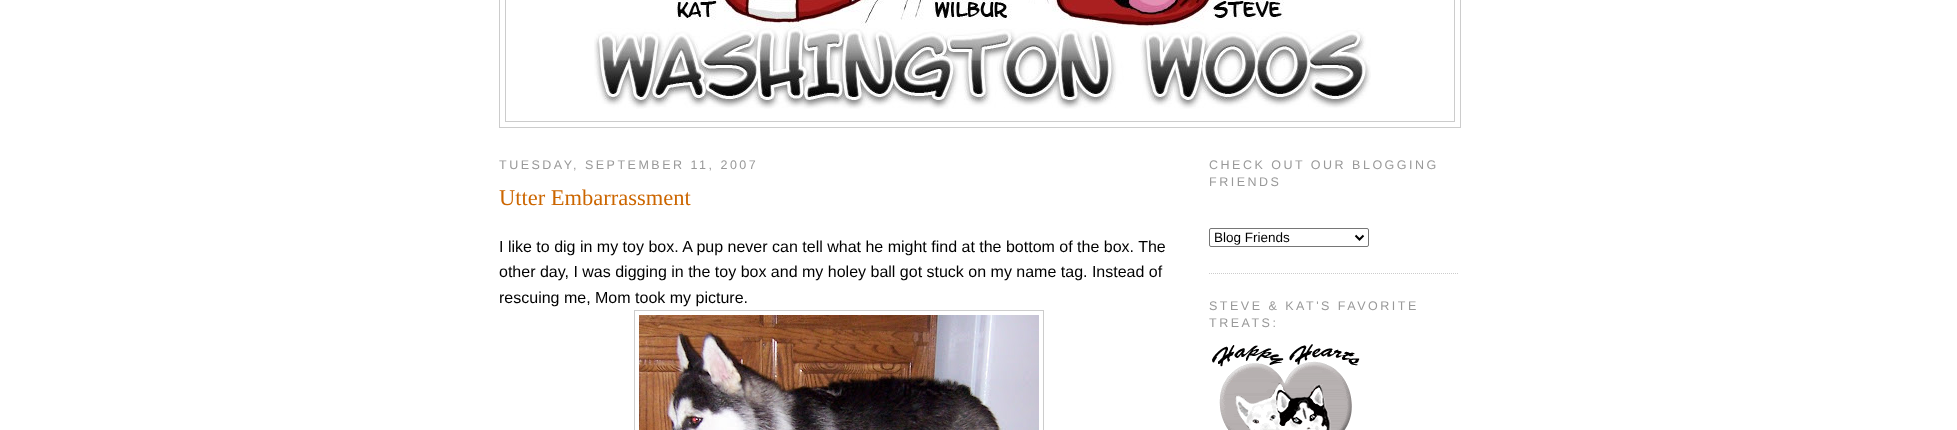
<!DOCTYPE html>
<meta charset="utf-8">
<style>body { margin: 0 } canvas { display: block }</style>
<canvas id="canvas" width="1957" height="430"></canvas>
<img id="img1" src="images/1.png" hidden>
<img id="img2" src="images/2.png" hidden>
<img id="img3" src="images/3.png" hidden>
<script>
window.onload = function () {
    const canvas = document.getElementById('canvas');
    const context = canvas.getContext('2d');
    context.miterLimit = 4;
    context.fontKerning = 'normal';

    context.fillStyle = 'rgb(255, 255, 255)';
    context.fillRect(0, 0, 1957, 430);
    context.strokeStyle = 'rgb(204, 204, 204)';
    context.strokeRect(499.5, -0.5, 961, 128);
    context.strokeRect(505.5, -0.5, 949, 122);
    context.drawImage(document.getElementById('img1'), 594, 0, 777, 109);
    context.strokeRect(634.5, 310.5, 409, 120);
    context.drawImage(document.getElementById('img2'), 639, 315, 400, 115);
    context.beginPath();
    context.moveTo(1209, 273.5);
    context.lineTo(1459, 273.5);
    context.setLineDash([1, 1]);
    context.stroke();
    context.beginPath();
    context.roundRect(1209.5, 228.5, 159, 18, 1.5);
    context.strokeStyle = 'rgb(118, 118, 118)';
    context.setLineDash([]);
    context.stroke();
    context.beginPath();
    context.moveTo(1355.5, 235.5);
    context.lineTo(1359.5, 239.5);
    context.lineTo(1363.5, 235.5);
    context.strokeStyle = 'rgb(0, 0, 0)';
    context.lineWidth = 2;
    context.stroke();
    context.drawImage(document.getElementById('img3'), 1212, 344, 148, 86);
    context.letterSpacing = '2.5px';
    context.font = '12.5px Liberation Sans';
    context.fillStyle = 'rgb(153, 153, 153)';
    context.fillText('TUESDAY, SEPTEMBER 11, 2007', 499, 169);
    context.letterSpacing = '0px';
    context.font = '22.5px Liberation Serif';
    context.fillStyle = 'rgb(204, 102, 0)';
    context.fillText('Utter Embarrassment', 499, 205);
    context.font = '16px Liberation Sans';
    context.fillStyle = 'rgb(0, 0, 0)';
    context.fillText('I like to dig in my toy box. A pup never can tell what he might find at the bottom of the box. The', 499, 252);
    context.fillText('other day, I was digging in the toy box and my holey ball got stuck on my name tag. Instead of', 499, 277);
    context.fillText('rescuing me, Mom took my picture.', 499, 303);
    context.letterSpacing = '2.5px';
    context.font = '12.5px Liberation Sans';
    context.fillStyle = 'rgb(153, 153, 153)';
    context.fillText('CHECK OUT OUR BLOGGING', 1209, 169);
    context.fillText('FRIENDS', 1209, 186);
    context.letterSpacing = '0px';
    context.font = '13.5px Liberation Sans';
    context.fillStyle = 'rgb(0, 0, 0)';
    context.fillText('Blog Friends', 1214, 242);
    context.letterSpacing = '2.5px';
    context.font = '12.5px Liberation Sans';
    context.fillStyle = 'rgb(153, 153, 153)';
    context.fillText('STEVE & KAT\'S FAVORITE', 1209, 310);
    context.fillText('TREATS:', 1209, 327);
};
</script>
